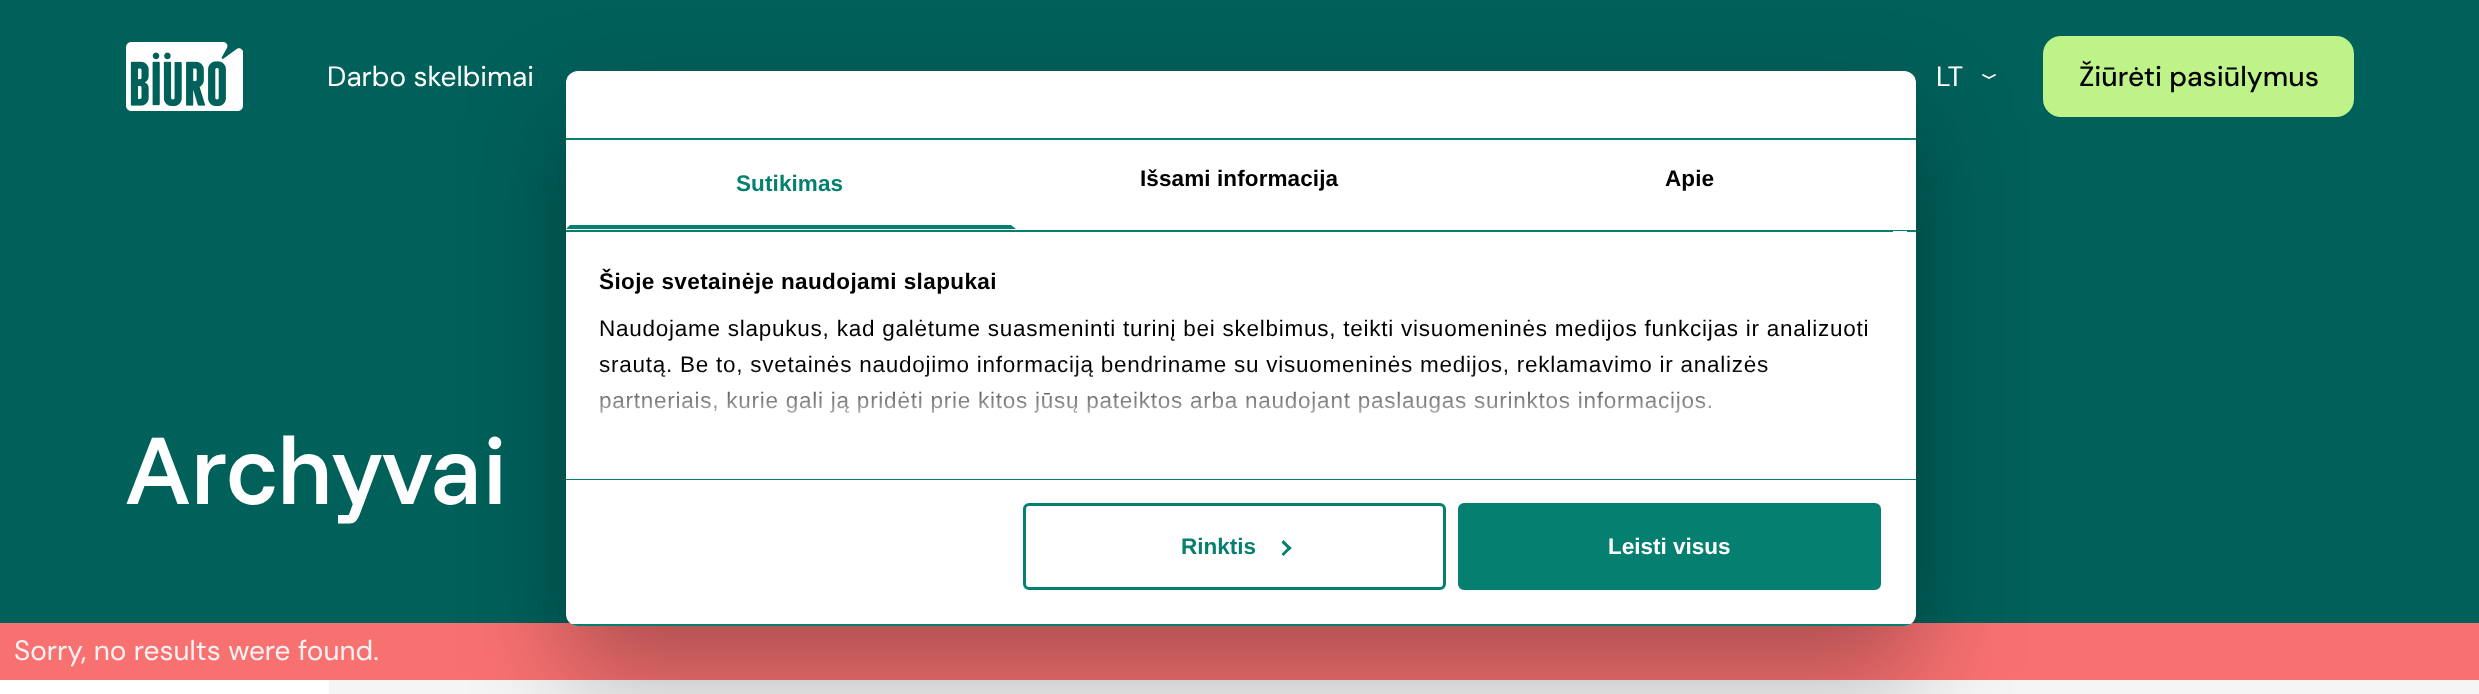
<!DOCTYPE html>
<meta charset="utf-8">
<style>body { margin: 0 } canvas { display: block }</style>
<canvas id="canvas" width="2479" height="694"></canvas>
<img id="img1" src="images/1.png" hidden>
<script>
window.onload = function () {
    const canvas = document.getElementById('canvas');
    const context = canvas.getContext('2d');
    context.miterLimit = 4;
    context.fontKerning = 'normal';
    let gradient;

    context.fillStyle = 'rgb(245, 245, 245)';
    context.fillRect(0, 0, 2479, 694);
    context.fillStyle = 'rgb(0, 96, 90)';
    context.fillRect(0, 0, 2479, 623);
    context.drawImage(document.getElementById('img1'), 126, 42, 117, 69);
    context.beginPath();
    context.moveTo(1995, 75);
    context.lineTo(1989, 78);
    context.lineTo(1983, 75);
    context.strokeStyle = 'rgb(255, 255, 255)';
    context.lineWidth = 1.8;
    context.lineCap = 'round';
    context.stroke();
    context.fillStyle = 'rgb(189, 243, 136)';
    context.beginPath();
    context.roundRect(2043, 36, 311, 81, 18);
    context.fill();
    context.fillStyle = 'rgb(248, 113, 113)';
    context.fillRect(0, 623, 2479, 57);
    context.fillStyle = 'rgb(255, 255, 255)';
    context.fillRect(0, 680, 329, 14);
    context.fillStyle = 'rgba(0, 0, 0, 0.3)';
    context.filter = 'blur(51px)';
    context.beginPath();
    context.roundRect(566, 119, 1350, 555, 12);
    context.fill();
    context.filter = 'none';
    context.fillStyle = 'rgb(255, 255, 255)';
    context.beginPath();
    context.roundRect(566, 71, 1350, 555, 12);
    context.fill();
    context.fillStyle = 'rgb(5, 127, 112)';
    context.fillRect(566, 138, 1350, 2);
    context.fillRect(566, 230, 1350, 2);
    context.beginPath();
    context.moveTo(1016, 229);
    context.lineTo(566, 229);
    context.lineTo(570, 225);
    context.lineTo(1011, 225);
    context.closePath();
    context.fill();
    context.fillRect(566, 479, 1350, 1);
    context.fillStyle = 'rgb(255, 255, 255)';
    context.fillRect(1893, 231, 14, 1);
    context.save();
    context.beginPath();
    context.roundRect(566, 71, 1350, 555, 12);
    context.clip();
    context.fillStyle = 'rgb(5, 127, 112)';
    context.fillRect(566, 624, 1350, 2);
    context.restore();
    context.beginPath();
    context.roundRect(1024.5, 504.5, 420, 84, 4.5);
    context.strokeStyle = 'rgb(5, 127, 112)';
    context.lineWidth = 3;
    context.stroke();
    context.fillStyle = 'rgb(5, 127, 112)';
    context.beginPath();
    context.moveTo(1283.5, 540);
    context.lineTo(1291.5, 548);
    context.lineTo(1289.5, 550.5);
    context.lineTo(1281.5, 542.5);
    context.closePath();
    context.fill();
    context.beginPath();
    context.moveTo(1289.5, 546);
    context.lineTo(1291.5, 548);
    context.lineTo(1283.5, 556);
    context.lineTo(1281.5, 554);
    context.closePath();
    context.fill();
    context.beginPath();
    context.roundRect(1459.5, 504.5, 420, 84, 4.5);
    context.fill();
    context.stroke();
    context.font = '28px DM Sans';
    context.fillStyle = 'rgb(255, 255, 255)';
    context.fillText('Darbo skelbimai', 327, 86);
    context.fillText('LT', 1936, 86);
    context.font = '500 28px DM Sans';
    context.fillStyle = 'rgb(0, 0, 0)';
    context.fillText('Žiūrėti pasiūlymus', 2079, 86);
    context.font = '500 98px Funnel Sans';
    context.fillStyle = 'rgb(255, 255, 255)';
    context.fillText('Archyvai', 126, 504);
    context.font = '28px DM Sans';
    context.fillStyle = 'rgb(254, 242, 242)';
    context.fillText('Sorry, no results were found.', 14, 660);
    context.letterSpacing = '0.1px';
    context.font = 'bold 22.5px Liberation Sans';
    context.fillStyle = 'rgb(5, 127, 112)';
    context.fillText('Sutikimas', 736, 191);
    context.fillStyle = 'rgb(0, 0, 0)';
    context.fillText('Išsami informacija', 1140, 186);
    context.fillText('Apie', 1665, 186);
    context.letterSpacing = '0.4px';
    context.fillText('Šioje svetainėje naudojami slapukai', 599, 289);
    context.letterSpacing = '0.75px';
    context.font = '22.5px Liberation Sans';
    context.fillText('Naudojame slapukus, kad galėtume suasmeninti turinį bei skelbimus, teikti visuomeninės medijos funkcijas ir analizuoti', 599, 336);
    context.fillText('srautą. Be to, svetainės naudojimo informaciją bendriname su visuomeninės medijos, reklamavimo ir analizės', 599, 372);
    context.fillText('partneriais, kurie gali ją pridėti prie kitos jūsų pateiktos arba naudojant paslaugas surinktos informacijos.', 599, 408);
    gradient = context.createLinearGradient(1225, 478, 1225, 366);
    gradient.addColorStop(0, 'rgb(255, 255, 255)');
    gradient.addColorStop(0.5, 'rgba(255, 255, 255, 0.8)');
    gradient.addColorStop(1, 'rgba(255, 255, 255, 0)');
    context.fillStyle = gradient;
    context.fillRect(599, 368, 1168, 45);
    context.letterSpacing = '0px';
    context.font = 'bold 22.5px Liberation Sans';
    context.fillStyle = 'rgb(5, 127, 112)';
    context.fillText('Rinktis', 1181, 554);
    context.fillStyle = 'rgb(255, 255, 255)';
    context.fillText('Leisti visus', 1608, 554);
};
</script>
